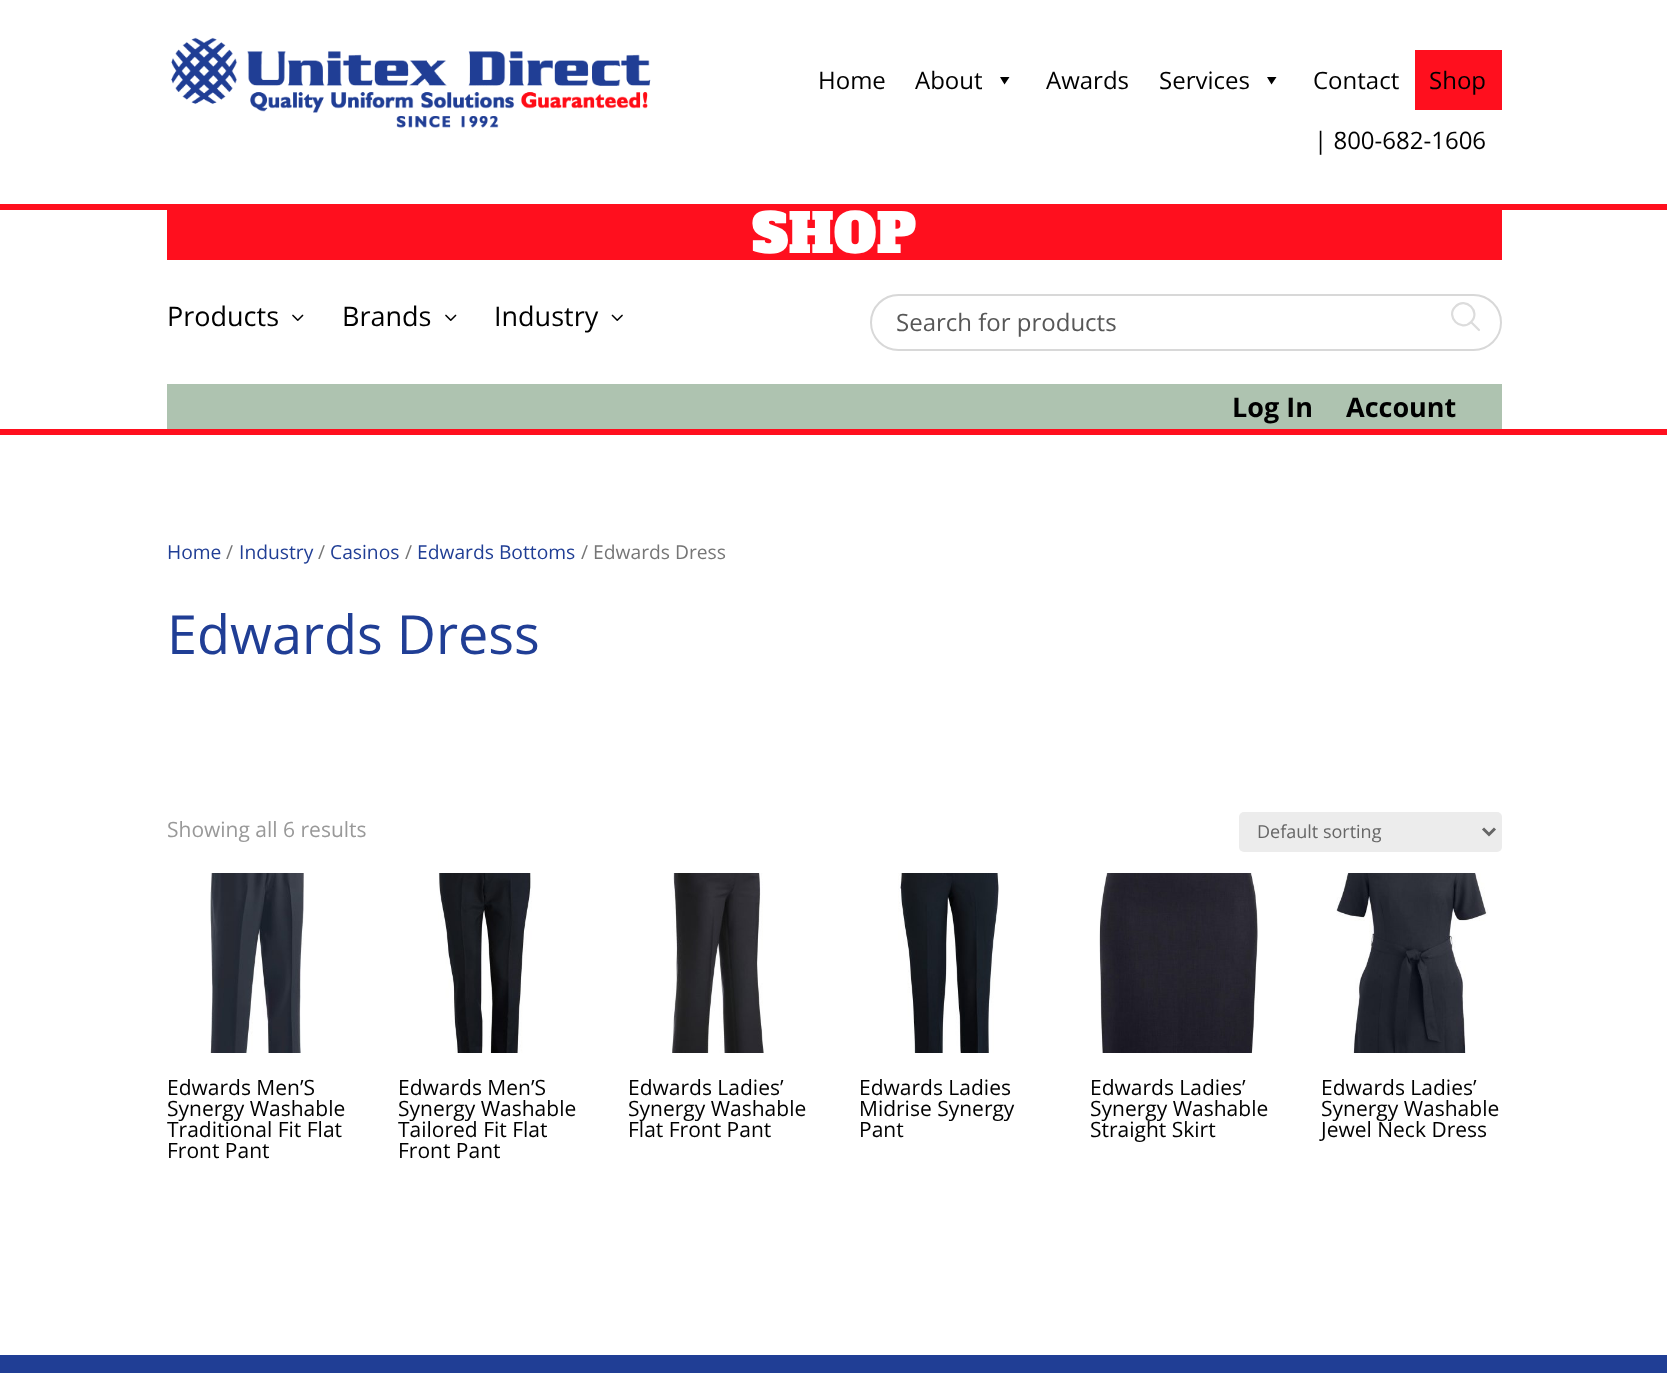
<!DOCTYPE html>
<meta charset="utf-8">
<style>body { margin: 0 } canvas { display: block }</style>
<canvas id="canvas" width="1667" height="1373"></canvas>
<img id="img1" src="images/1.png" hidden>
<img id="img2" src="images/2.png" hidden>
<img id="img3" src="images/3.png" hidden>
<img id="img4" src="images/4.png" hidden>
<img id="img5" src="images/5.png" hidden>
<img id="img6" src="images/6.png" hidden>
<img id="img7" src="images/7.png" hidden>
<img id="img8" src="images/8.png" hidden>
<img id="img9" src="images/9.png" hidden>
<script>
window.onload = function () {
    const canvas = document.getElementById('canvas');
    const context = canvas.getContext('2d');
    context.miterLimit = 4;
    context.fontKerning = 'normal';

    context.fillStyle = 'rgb(255, 255, 255)';
    context.fillRect(0, 0, 1667, 1373);
    context.drawImage(document.getElementById('img1'), 171, 37, 480, 91);
    context.fillStyle = 'rgb(0, 0, 0)';
    context.beginPath();
    context.moveTo(1009.5, 77);
    context.lineTo(1004.5, 84.5);
    context.lineTo(1000, 77);
    context.closePath();
    context.fill();
    context.beginPath();
    context.moveTo(1276.5, 77);
    context.lineTo(1271.5, 84.5);
    context.lineTo(1267, 77);
    context.closePath();
    context.fill();
    context.fillStyle = 'rgb(255, 15, 30)';
    context.fillRect(1415, 50, 87, 60);
    context.fillRect(0, 204, 1667, 6);
    context.fillRect(0, 429, 1667, 6);
    context.fillRect(167, 210, 1335, 50);
    context.drawImage(document.getElementById('img2'), 292, 314, 12, 7);
    context.drawImage(document.getElementById('img2'), 445, 314, 12, 7);
    context.drawImage(document.getElementById('img3'), 611, 314, 12, 7);
    context.beginPath();
    context.roundRect(871, 295, 630, 55, 27.5);
    context.strokeStyle = 'rgb(216, 216, 216)';
    context.lineWidth = 2;
    context.stroke();
    context.beginPath();
    context.moveTo(1479, 330);
    context.lineTo(1471, 322);
    context.moveTo(1471, 322);
    context.bezierCurveTo(1481.5, 312, 1465.5, 296, 1455.5, 306.5);
    context.bezierCurveTo(1445, 316.5, 1461, 332.5, 1471, 322);
    context.closePath();
    context.strokeStyle = 'rgb(220, 220, 220)';
    context.lineWidth = 2.2;
    context.lineCap = 'round';
    context.lineJoin = 'round';
    context.stroke();
    context.fillStyle = 'rgb(174, 195, 176)';
    context.fillRect(167, 384, 1335, 45);
    context.fillStyle = 'rgb(236, 236, 236)';
    context.beginPath();
    context.roundRect(1239, 812, 263, 40, 5);
    context.fill();
    context.beginPath();
    context.moveTo(1483, 828.5);
    context.lineTo(1489, 834.5);
    context.lineTo(1495, 828.5);
    context.strokeStyle = 'rgb(102, 102, 102)';
    context.lineWidth = 3;
    context.lineCap = 'butt';
    context.lineJoin = 'miter';
    context.stroke();
    context.drawImage(document.getElementById('img4'), 210, 873, 94, 180);
    context.drawImage(document.getElementById('img5'), 438, 873, 94, 180);
    context.drawImage(document.getElementById('img6'), 672, 873, 92, 180);
    context.drawImage(document.getElementById('img7'), 898, 873, 101, 180);
    context.drawImage(document.getElementById('img8'), 1099, 873, 159, 180);
    context.drawImage(document.getElementById('img9'), 1336, 873, 152, 180);
    context.fillStyle = 'rgb(32, 62, 149)';
    context.fillRect(0, 1355, 1667, 18);
    context.font = '24px Open Sans';
    context.fillStyle = 'rgb(0, 0, 0)';
    context.fillText('Home', 818, 89);
    context.fillText('About', 915, 89);
    context.fillText('Awards', 1046, 89);
    context.fillText('Services', 1159, 89);
    context.fillText('Contact', 1313, 89);
    context.fillText('Shop', 1429, 89);
    context.fillText('| 800-682-1606', 1314, 149);
    context.font = '54px Alfa Slab One';
    context.fillStyle = 'rgb(255, 255, 255)';
    context.fillText('SHOP', 752, 253);
    context.font = '27px Open Sans';
    context.fillStyle = 'rgb(0, 0, 0)';
    context.fillText('Products', 167, 326);
    context.fillText('Brands', 342, 326);
    context.fillText('Industry', 494, 326);
    context.font = '24px Open Sans';
    context.fillStyle = 'rgb(87, 87, 87)';
    context.fillText('Search for products', 896, 331);
    context.font = 'bold 27px Open Sans';
    context.fillStyle = 'rgb(0, 0, 0)';
    context.fillText('Log In', 1232, 417);
    context.fillText('Account', 1346, 417);
    context.font = '19.25px Open Sans';
    context.fillStyle = 'rgb(32, 62, 149)';
    context.fillText('Home', 167, 559);
    context.fillStyle = 'rgb(118, 118, 118)';
    context.fillText('/', 226, 559);
    context.fillStyle = 'rgb(32, 62, 149)';
    context.fillText('Industry', 239, 559);
    context.fillStyle = 'rgb(118, 118, 118)';
    context.fillText('/', 318, 559);
    context.fillStyle = 'rgb(32, 62, 149)';
    context.fillText('Casinos', 330, 559);
    context.fillStyle = 'rgb(118, 118, 118)';
    context.fillText('/', 405, 559);
    context.fillStyle = 'rgb(32, 62, 149)';
    context.fillText('Edwards Bottoms', 417, 559);
    context.fillStyle = 'rgb(118, 118, 118)';
    context.fillText('/ Edwards Dress', 581, 559);
    context.font = '54px Open Sans';
    context.fillStyle = 'rgb(32, 62, 149)';
    context.fillText('Edwards Dress', 167, 654);
    context.font = '21px Open Sans';
    context.fillStyle = 'rgb(153, 153, 153)';
    context.fillText('Showing all 6 results', 167, 837);
    context.font = '18px Open Sans';
    context.fillStyle = 'rgb(102, 102, 102)';
    context.fillText('Default sorting', 1257, 838);
    context.font = '21px Open Sans';
    context.fillStyle = 'rgb(0, 0, 0)';
    context.fillText('Edwards Men’S', 167, 1095);
    context.fillText('Synergy Washable', 167, 1116);
    context.fillText('Traditional Fit Flat', 167, 1137);
    context.fillText('Front Pant', 167, 1158);
    context.fillText('Edwards Men’S', 398, 1095);
    context.fillText('Synergy Washable', 398, 1116);
    context.fillText('Tailored Fit Flat', 398, 1137);
    context.fillText('Front Pant', 398, 1158);
    context.fillText('Edwards Ladies’', 628, 1095);
    context.fillText('Synergy Washable', 628, 1116);
    context.fillText('Flat Front Pant', 628, 1137);
    context.fillText('Edwards Ladies', 859, 1095);
    context.fillText('Midrise Synergy', 859, 1116);
    context.fillText('Pant', 859, 1137);
    context.fillText('Edwards Ladies’', 1090, 1095);
    context.fillText('Synergy Washable', 1090, 1116);
    context.fillText('Straight Skirt', 1090, 1137);
    context.fillText('Edwards Ladies’', 1321, 1095);
    context.fillText('Synergy Washable', 1321, 1116);
    context.fillText('Jewel Neck Dress', 1321, 1137);
};
</script>
